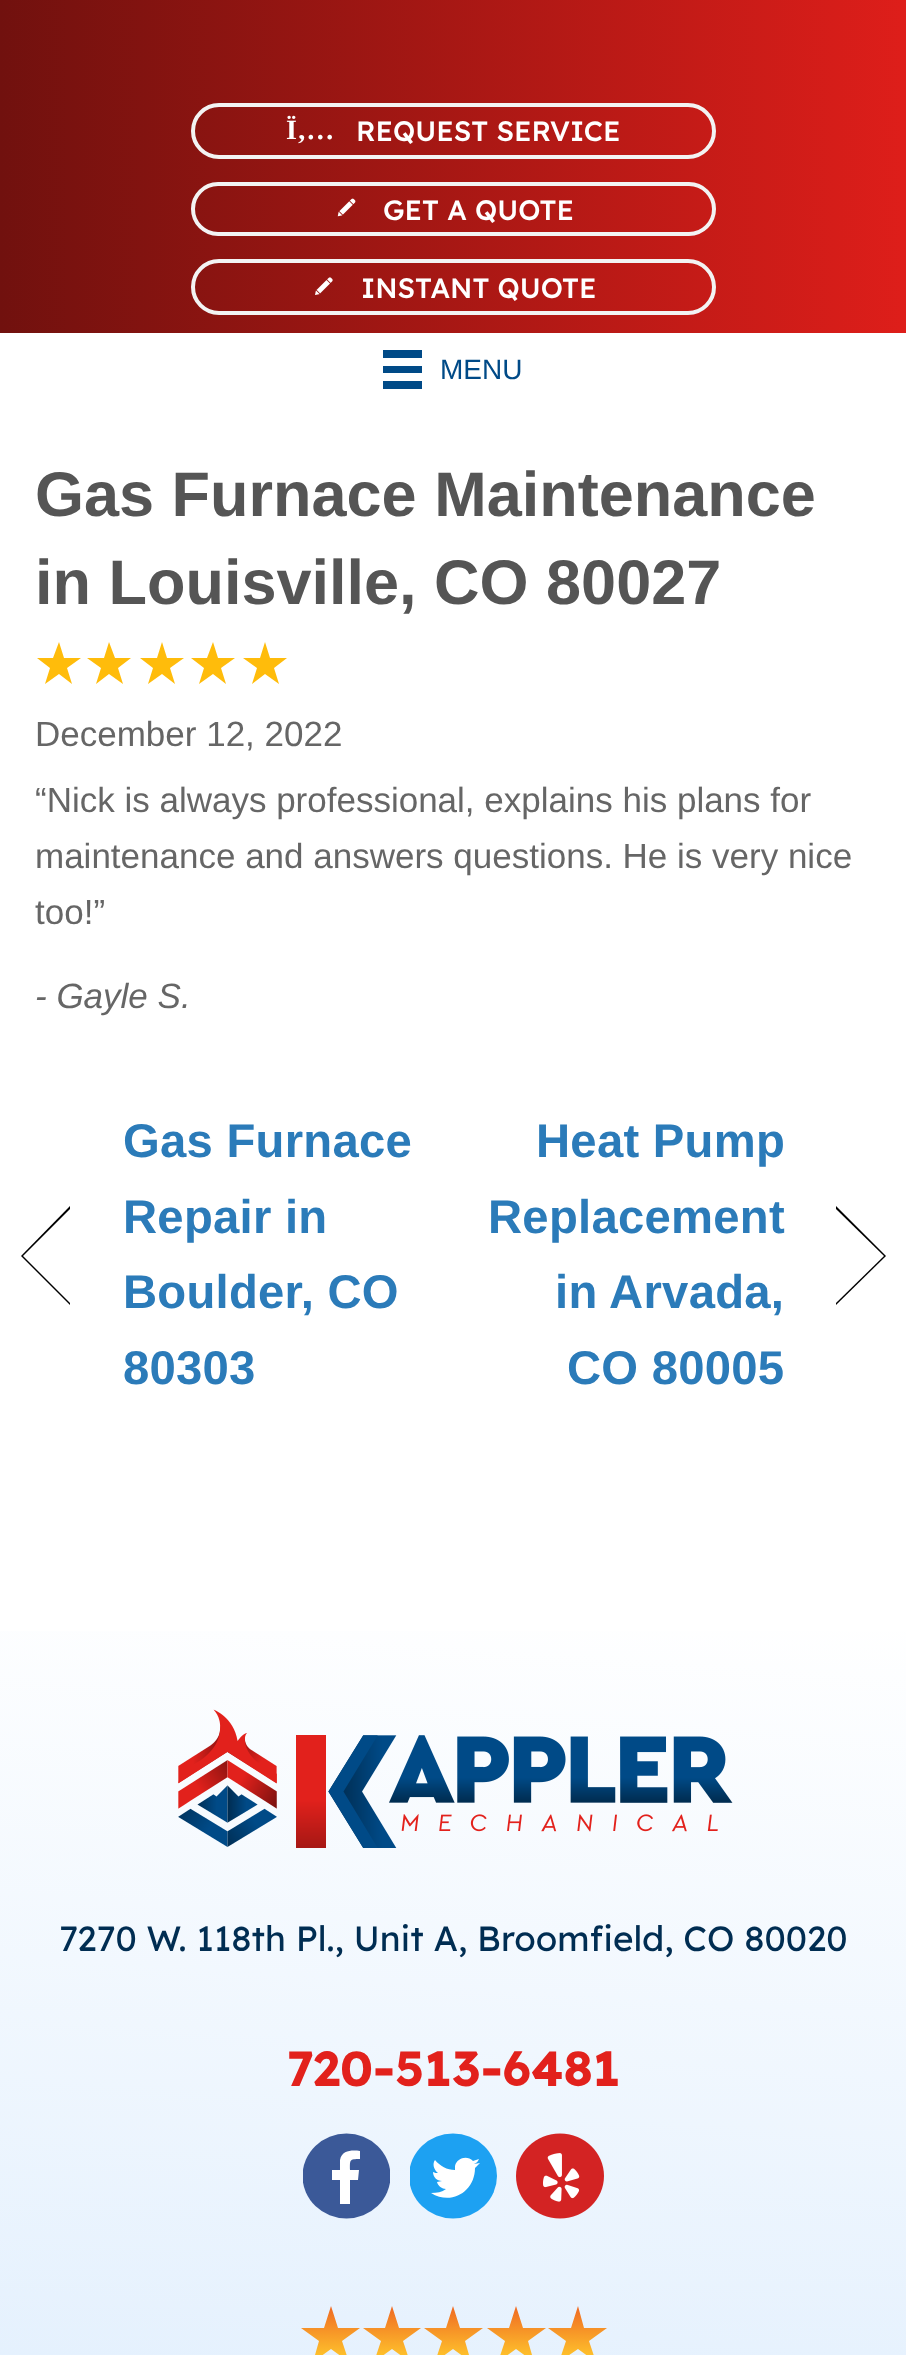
<!DOCTYPE html>
<meta charset="utf-8">
<style>body { margin: 0 } canvas { display: block }</style>
<canvas id="canvas" width="906" height="2355"></canvas>
<img id="img1" src="images/1.png" hidden>
<img id="img2" src="images/2.png" hidden>
<img id="img3" src="images/3.png" hidden>
<img id="img4" src="images/4.png" hidden>
<script>
window.onload = function () {
    const canvas = document.getElementById('canvas');
    const context = canvas.getContext('2d');
    context.miterLimit = 4;
    context.fontKerning = 'normal';
    let gradient;

    context.fillStyle = 'rgb(255, 255, 255)';
    context.fillRect(0, 0, 906, 2355);
    gradient = context.createLinearGradient(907, 122, 0, 123);
    gradient.addColorStop(0, 'rgb(222, 30, 26)');
    gradient.addColorStop(1, 'rgb(113, 17, 14)');
    context.fillStyle = gradient;
    context.fillRect(0, 0, 906, 333);
    context.beginPath();
    context.roundRect(193, 105, 521, 52, 26);
    context.strokeStyle = 'rgb(243, 243, 243)';
    context.lineWidth = 4;
    context.stroke();
    context.beginPath();
    context.roundRect(193, 184, 521, 50, 25);
    context.stroke();
    context.drawImage(document.getElementById('img1'), 337, 198, 19, 19);
    context.beginPath();
    context.roundRect(193, 261, 521, 52, 26);
    context.stroke();
    context.drawImage(document.getElementById('img2'), 315, 277, 18, 18);
    context.fillStyle = 'rgb(0, 74, 135)';
    context.fillRect(383, 350, 39, 8);
    context.fillRect(383, 366, 39, 7);
    context.fillRect(383, 381, 39, 8);
    context.fillStyle = 'rgb(255, 188, 11)';
    context.beginPath();
    context.moveTo(59, 642);
    context.lineTo(64, 658);
    context.lineTo(59, 642);
    context.lineTo(64, 658);
    context.lineTo(81, 658);
    context.lineTo(67, 668);
    context.lineTo(72, 684);
    context.lineTo(59, 674);
    context.lineTo(45, 684);
    context.lineTo(50, 668);
    context.lineTo(37, 658);
    context.lineTo(53, 658);
    context.closePath();
    context.fill();
    context.beginPath();
    context.moveTo(109, 642);
    context.lineTo(115, 658);
    context.lineTo(109, 642);
    context.lineTo(115, 658);
    context.lineTo(131, 658);
    context.lineTo(118, 668);
    context.lineTo(123, 684);
    context.lineTo(109, 674);
    context.lineTo(96, 684);
    context.lineTo(101, 668);
    context.lineTo(87, 658);
    context.lineTo(104, 658);
    context.closePath();
    context.fill();
    context.beginPath();
    context.moveTo(162, 642);
    context.lineTo(167, 658);
    context.lineTo(162, 642);
    context.lineTo(167, 658);
    context.lineTo(184, 658);
    context.lineTo(170, 668);
    context.lineTo(175, 684);
    context.lineTo(162, 674);
    context.lineTo(148, 684);
    context.lineTo(153, 668);
    context.lineTo(140, 658);
    context.lineTo(157, 658);
    context.closePath();
    context.fill();
    context.beginPath();
    context.moveTo(213, 642);
    context.lineTo(218, 658);
    context.lineTo(213, 642);
    context.lineTo(218, 658);
    context.lineTo(235, 658);
    context.lineTo(221, 668);
    context.lineTo(226, 684);
    context.lineTo(213, 674);
    context.lineTo(199, 684);
    context.lineTo(204, 668);
    context.lineTo(191, 658);
    context.lineTo(207, 658);
    context.closePath();
    context.fill();
    context.beginPath();
    context.moveTo(265, 642);
    context.lineTo(270, 658);
    context.lineTo(265, 642);
    context.lineTo(270, 658);
    context.lineTo(287, 658);
    context.lineTo(274, 668);
    context.lineTo(279, 684);
    context.lineTo(265, 674);
    context.lineTo(252, 684);
    context.lineTo(257, 668);
    context.lineTo(243, 658);
    context.lineTo(260, 658);
    context.closePath();
    context.fill();
    context.fillStyle = 'rgb(0, 0, 0)';
    context.beginPath();
    context.moveTo(70, 1305);
    context.lineTo(21, 1256);
    context.lineTo(23, 1256);
    context.lineTo(70, 1303);
    context.closePath();
    context.fill();
    context.beginPath();
    context.moveTo(21, 1256);
    context.lineTo(70, 1206);
    context.lineTo(70, 1209);
    context.lineTo(23, 1256);
    context.closePath();
    context.fill();
    context.beginPath();
    context.moveTo(836, 1206);
    context.lineTo(886, 1256);
    context.lineTo(884, 1256);
    context.lineTo(836, 1209);
    context.closePath();
    context.fill();
    context.beginPath();
    context.moveTo(886, 1256);
    context.lineTo(836, 1305);
    context.lineTo(836, 1303);
    context.lineTo(884, 1256);
    context.closePath();
    context.fill();
    gradient = context.createLinearGradient(507, 1589, 400, 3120);
    gradient.addColorStop(0, 'rgb(255, 255, 255)');
    gradient.addColorStop(1, 'rgb(205, 228, 252)');
    context.fillStyle = gradient;
    context.fillRect(0, 1631, 906, 724);
    context.drawImage(document.getElementById('img3'), 178, 1709, 555, 139);
    context.save();
    context.beginPath();
    context.rect(303, 2133, 87, 86);
    context.clip();
    context.fillStyle = 'rgb(59, 89, 152)';
    context.beginPath();
    context.ellipse(346.5, 2176, 44, 42.5, 0, 0, 2 * Math.PI);
    context.fill();
    context.restore();
    context.fillStyle = 'rgb(255, 255, 255)';
    context.beginPath();
    context.moveTo(360, 2159);
    context.bezierCurveTo(349, 2159, 350, 2160, 350, 2170);
    context.lineTo(359, 2170);
    context.lineTo(358, 2180);
    context.lineTo(350, 2180);
    context.lineTo(350, 2204);
    context.lineTo(340, 2204);
    context.lineTo(340, 2180);
    context.lineTo(332, 2180);
    context.lineTo(332, 2170);
    context.lineTo(340, 2170);
    context.lineTo(340, 2160);
    context.bezierCurveTo(342, 2150, 352, 2150, 360, 2151);
    context.closePath();
    context.fill();
    context.save();
    context.beginPath();
    context.rect(410, 2133, 87, 86);
    context.clip();
    context.fillStyle = 'rgb(29, 161, 242)';
    context.beginPath();
    context.ellipse(453, 2176, 44, 42.5, 0, 0, 2 * Math.PI);
    context.fill();
    context.restore();
    context.beginPath();
    context.moveTo(475, 2168);
    context.bezierCurveTo(475, 2191, 452, 2206, 431, 2193);
    context.bezierCurveTo(437, 2193, 442, 2192, 446, 2189);
    context.bezierCurveTo(442, 2189, 438, 2186, 437, 2182);
    context.lineTo(442, 2181);
    context.bezierCurveTo(437, 2181, 433, 2177, 433, 2172);
    context.bezierCurveTo(435, 2173, 436, 2173, 438, 2173);
    context.bezierCurveTo(434, 2170, 432, 2164, 435, 2160);
    context.bezierCurveTo(440, 2166, 447, 2170, 455, 2170);
    context.lineTo(455, 2166);
    context.bezierCurveTo(457, 2158, 467, 2155, 473, 2161);
    context.lineTo(479, 2159);
    context.bezierCurveTo(478, 2161, 477, 2163, 474, 2164);
    context.lineTo(480, 2163);
    context.closePath();
    context.fill();
    context.drawImage(document.getElementById('img4'), 516, 2133, 88, 86);
    gradient = context.createLinearGradient(330, 2306, 330, 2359);
    gradient.addColorStop(0, 'rgb(239, 105, 35)');
    gradient.addColorStop(1, 'rgb(255, 198, 44)');
    context.fillStyle = gradient;
    context.beginPath();
    context.moveTo(331, 2306);
    context.lineTo(338, 2328);
    context.lineTo(331, 2306);
    context.lineTo(338, 2328);
    context.lineTo(360, 2328);
    context.lineTo(342, 2341);
    context.lineTo(349, 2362);
    context.lineTo(331, 2349);
    context.lineTo(313, 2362);
    context.lineTo(319, 2341);
    context.lineTo(301, 2328);
    context.lineTo(324, 2328);
    context.closePath();
    context.fill();
    gradient = context.createLinearGradient(392, 2306, 392, 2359);
    gradient.addColorStop(0, 'rgb(239, 105, 35)');
    gradient.addColorStop(1, 'rgb(255, 198, 44)');
    context.fillStyle = gradient;
    context.beginPath();
    context.moveTo(392, 2306);
    context.lineTo(399, 2328);
    context.lineTo(392, 2306);
    context.lineTo(399, 2328);
    context.lineTo(421, 2328);
    context.lineTo(403, 2341);
    context.lineTo(410, 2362);
    context.lineTo(392, 2349);
    context.lineTo(374, 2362);
    context.lineTo(381, 2341);
    context.lineTo(363, 2328);
    context.lineTo(385, 2328);
    context.closePath();
    context.fill();
    gradient = context.createLinearGradient(453, 2306, 453, 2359);
    gradient.addColorStop(0, 'rgb(239, 105, 35)');
    gradient.addColorStop(1, 'rgb(255, 198, 44)');
    context.fillStyle = gradient;
    context.beginPath();
    context.moveTo(453, 2306);
    context.lineTo(460, 2328);
    context.lineTo(453, 2306);
    context.lineTo(460, 2328);
    context.lineTo(483, 2328);
    context.lineTo(465, 2341);
    context.lineTo(471, 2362);
    context.lineTo(453, 2349);
    context.lineTo(435, 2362);
    context.lineTo(442, 2341);
    context.lineTo(424, 2328);
    context.lineTo(446, 2328);
    context.closePath();
    context.fill();
    gradient = context.createLinearGradient(515, 2306, 515, 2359);
    gradient.addColorStop(0, 'rgb(239, 105, 35)');
    gradient.addColorStop(1, 'rgb(255, 198, 44)');
    context.fillStyle = gradient;
    context.beginPath();
    context.moveTo(516, 2306);
    context.lineTo(523, 2328);
    context.lineTo(516, 2306);
    context.lineTo(523, 2328);
    context.lineTo(546, 2328);
    context.lineTo(528, 2341);
    context.lineTo(534, 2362);
    context.lineTo(516, 2349);
    context.lineTo(498, 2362);
    context.lineTo(505, 2341);
    context.lineTo(487, 2328);
    context.lineTo(509, 2328);
    context.closePath();
    context.fill();
    gradient = context.createLinearGradient(576, 2306, 576, 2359);
    gradient.addColorStop(0, 'rgb(239, 105, 35)');
    gradient.addColorStop(1, 'rgb(255, 198, 44)');
    context.fillStyle = gradient;
    context.beginPath();
    context.moveTo(578, 2306);
    context.lineTo(584, 2328);
    context.lineTo(578, 2306);
    context.lineTo(584, 2328);
    context.lineTo(607, 2328);
    context.lineTo(589, 2341);
    context.lineTo(596, 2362);
    context.lineTo(578, 2349);
    context.lineTo(559, 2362);
    context.lineTo(566, 2341);
    context.lineTo(548, 2328);
    context.lineTo(571, 2328);
    context.closePath();
    context.fill();
    context.font = 'bold 28px Liberation Serif';
    context.fillStyle = 'rgb(255, 255, 255)';
    context.fillText('Ï‚…', 286, 139);
    context.font = '500 28px Lexend';
    context.fillText('REQUEST SERVICE', 356, 141);
    context.fillText('GET A QUOTE', 383, 220);
    context.fillText('INSTANT QUOTE', 361, 298);
    context.font = '28px Liberation Sans';
    context.fillStyle = 'rgb(0, 74, 135)';
    context.fillText('MENU', 440, 379);
    context.font = 'bold 63px Liberation Sans';
    context.fillStyle = 'rgb(85, 85, 85)';
    context.fillText('Gas Furnace Maintenance', 35, 516);
    context.fillText('in Louisville, CO 80027', 35, 604);
    context.font = '35px Liberation Sans';
    context.fillStyle = 'rgb(102, 102, 102)';
    context.fillText('December 12, 2022', 35, 746);
    context.fillText('“Nick is always professional, explains his plans for', 35, 812);
    context.fillText('maintenance and answers questions. He is very nice', 35, 868);
    context.fillText('too!”', 35, 924);
    context.font = 'italic 35px Liberation Sans';
    context.fillText('- Gayle S.', 35, 1008);
    context.letterSpacing = '0.25px';
    context.font = 'bold 47.25px Liberation Sans';
    context.fillStyle = 'rgb(43, 123, 185)';
    context.fillText('Gas Furnace', 123, 1157);
    context.fillText('Repair in', 123, 1233);
    context.fillText('Boulder, CO', 123, 1308);
    context.fillText('80303', 123, 1384);
    context.fillText('Heat Pump', 536, 1157);
    context.fillText('Replacement', 488, 1233);
    context.fillText('in Arvada,', 555, 1308);
    context.fillText('CO 80005', 567, 1384);
    context.letterSpacing = '0px';
    context.font = '35px Lexend';
    context.fillStyle = 'rgb(0, 45, 82)';
    context.fillText('7270 W. 118th Pl., Unit A, Broomfield, CO 80020', 59, 1951);
    context.font = 'bold 49px Lexend';
    context.fillStyle = 'rgb(226, 33, 28)';
    context.fillText('720-513-6481', 287, 2086);
};
</script>
